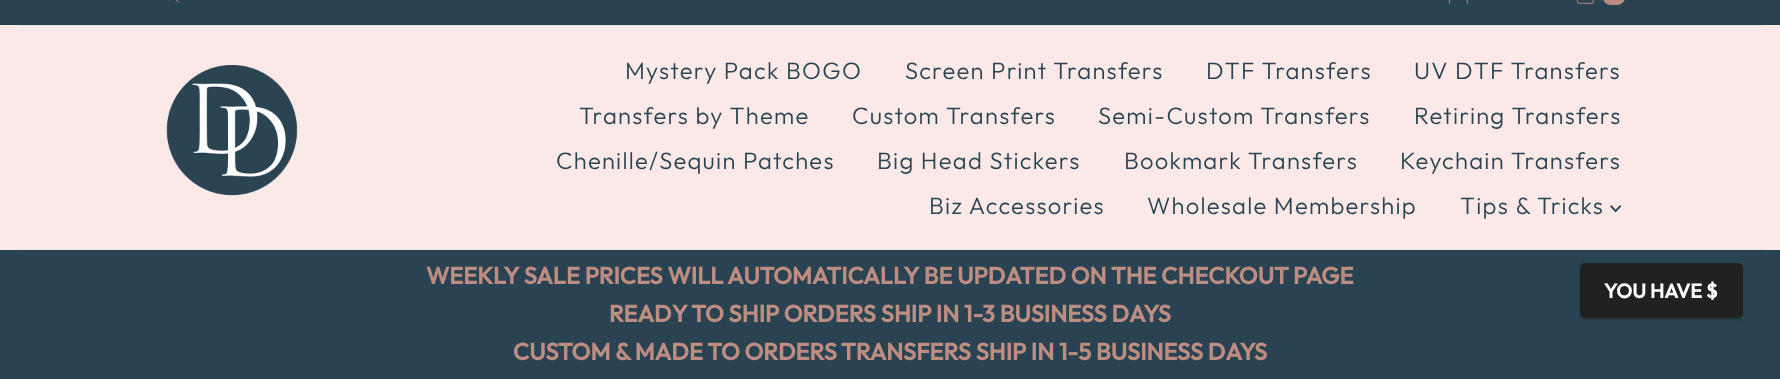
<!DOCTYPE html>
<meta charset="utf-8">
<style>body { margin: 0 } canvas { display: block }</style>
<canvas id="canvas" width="1780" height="379"></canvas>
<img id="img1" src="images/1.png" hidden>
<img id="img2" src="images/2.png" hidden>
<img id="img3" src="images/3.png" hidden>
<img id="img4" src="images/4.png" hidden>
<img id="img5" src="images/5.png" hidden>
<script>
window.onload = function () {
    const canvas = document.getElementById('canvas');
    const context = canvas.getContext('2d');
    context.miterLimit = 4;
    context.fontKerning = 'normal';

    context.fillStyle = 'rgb(42, 67, 82)';
    context.fillRect(0, 0, 1780, 379);
    context.drawImage(document.getElementById('img1'), 167, 0, 12, 3);
    context.drawImage(document.getElementById('img2'), 1449, 0, 19, 4);
    context.drawImage(document.getElementById('img3'), 1576, 0, 18, 4);
    context.fillStyle = 'rgb(190, 141, 130)';
    context.beginPath();
    context.roundRect(1603, -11, 22, 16, 11);
    context.fill();
    context.fillStyle = 'rgb(251, 233, 232)';
    context.fillRect(0, 25, 1780, 225);
    context.fillStyle = 'rgb(228, 228, 228)';
    context.fillRect(18, 25, 1745, 1);
    context.drawImage(document.getElementById('img4'), 166, 65, 132, 131);
    context.drawImage(document.getElementById('img5'), 1610, 205, 11, 8);
    context.fillRect(18, 249, 1745, 1);
    context.fillStyle = 'rgba(0, 0, 0, 0.14)';
    context.filter = 'blur(1px)';
    context.beginPath();
    context.roundRect(1580, 265, 163, 55, 5);
    context.fill();
    context.filter = 'none';
    context.fillStyle = 'rgba(0, 0, 0, 0.2)';
    context.filter = 'blur(0.5px)';
    context.beginPath();
    context.roundRect(1583, 269, 157, 50, 2.5);
    context.fill();
    context.filter = 'none';
    context.fillStyle = 'rgb(33, 33, 33)';
    context.beginPath();
    context.roundRect(1580, 263, 163, 55, 5);
    context.fill();
    context.letterSpacing = '1.25px';
    context.font = '300 23.75px Outfit';
    context.fillStyle = 'rgb(42, 67, 82)';
    context.fillText('Mystery Pack BOGO', 625, 79);
    context.fillText('Screen Print Transfers', 905, 79);
    context.fillText('DTF Transfers', 1206, 79);
    context.fillText('UV DTF Transfers', 1414, 79);
    context.fillText('Transfers by Theme', 579, 124);
    context.fillText('Custom Transfers', 852, 124);
    context.fillText('Semi-Custom Transfers', 1098, 124);
    context.fillText('Retiring Transfers', 1414, 124);
    context.fillText('Chenille/Sequin Patches', 556, 169);
    context.fillText('Big Head Stickers', 877, 169);
    context.fillText('Bookmark Transfers', 1124, 169);
    context.fillText('Keychain Transfers', 1400, 169);
    context.fillText('Biz Accessories', 929, 214);
    context.fillText('Wholesale Membership', 1147, 214);
    context.fillText('Tips & Tricks', 1460, 214);
    context.letterSpacing = '0px';
    context.font = 'bold 23.75px Outfit';
    context.fillStyle = 'rgb(190, 141, 130)';
    context.fillText('WEEKLY SALE PRICES WILL AUTOMATICALLY BE UPDATED ON THE CHECKOUT PAGE', 426, 284);
    context.fillText('READY TO SHIP ORDERS SHIP IN 1-3 BUSINESS DAYS', 609, 322);
    context.fillText('CUSTOM & MADE TO ORDERS', 513, 360);
    context.fillText('TRANSFERS SHIP IN 1-5 BUSINESS DAYS', 841, 360);
    context.font = 'bold 20px Outfit';
    context.fillStyle = 'rgb(255, 255, 255)';
    context.fillText('YOU HAVE $', 1604, 298);
};
</script>
